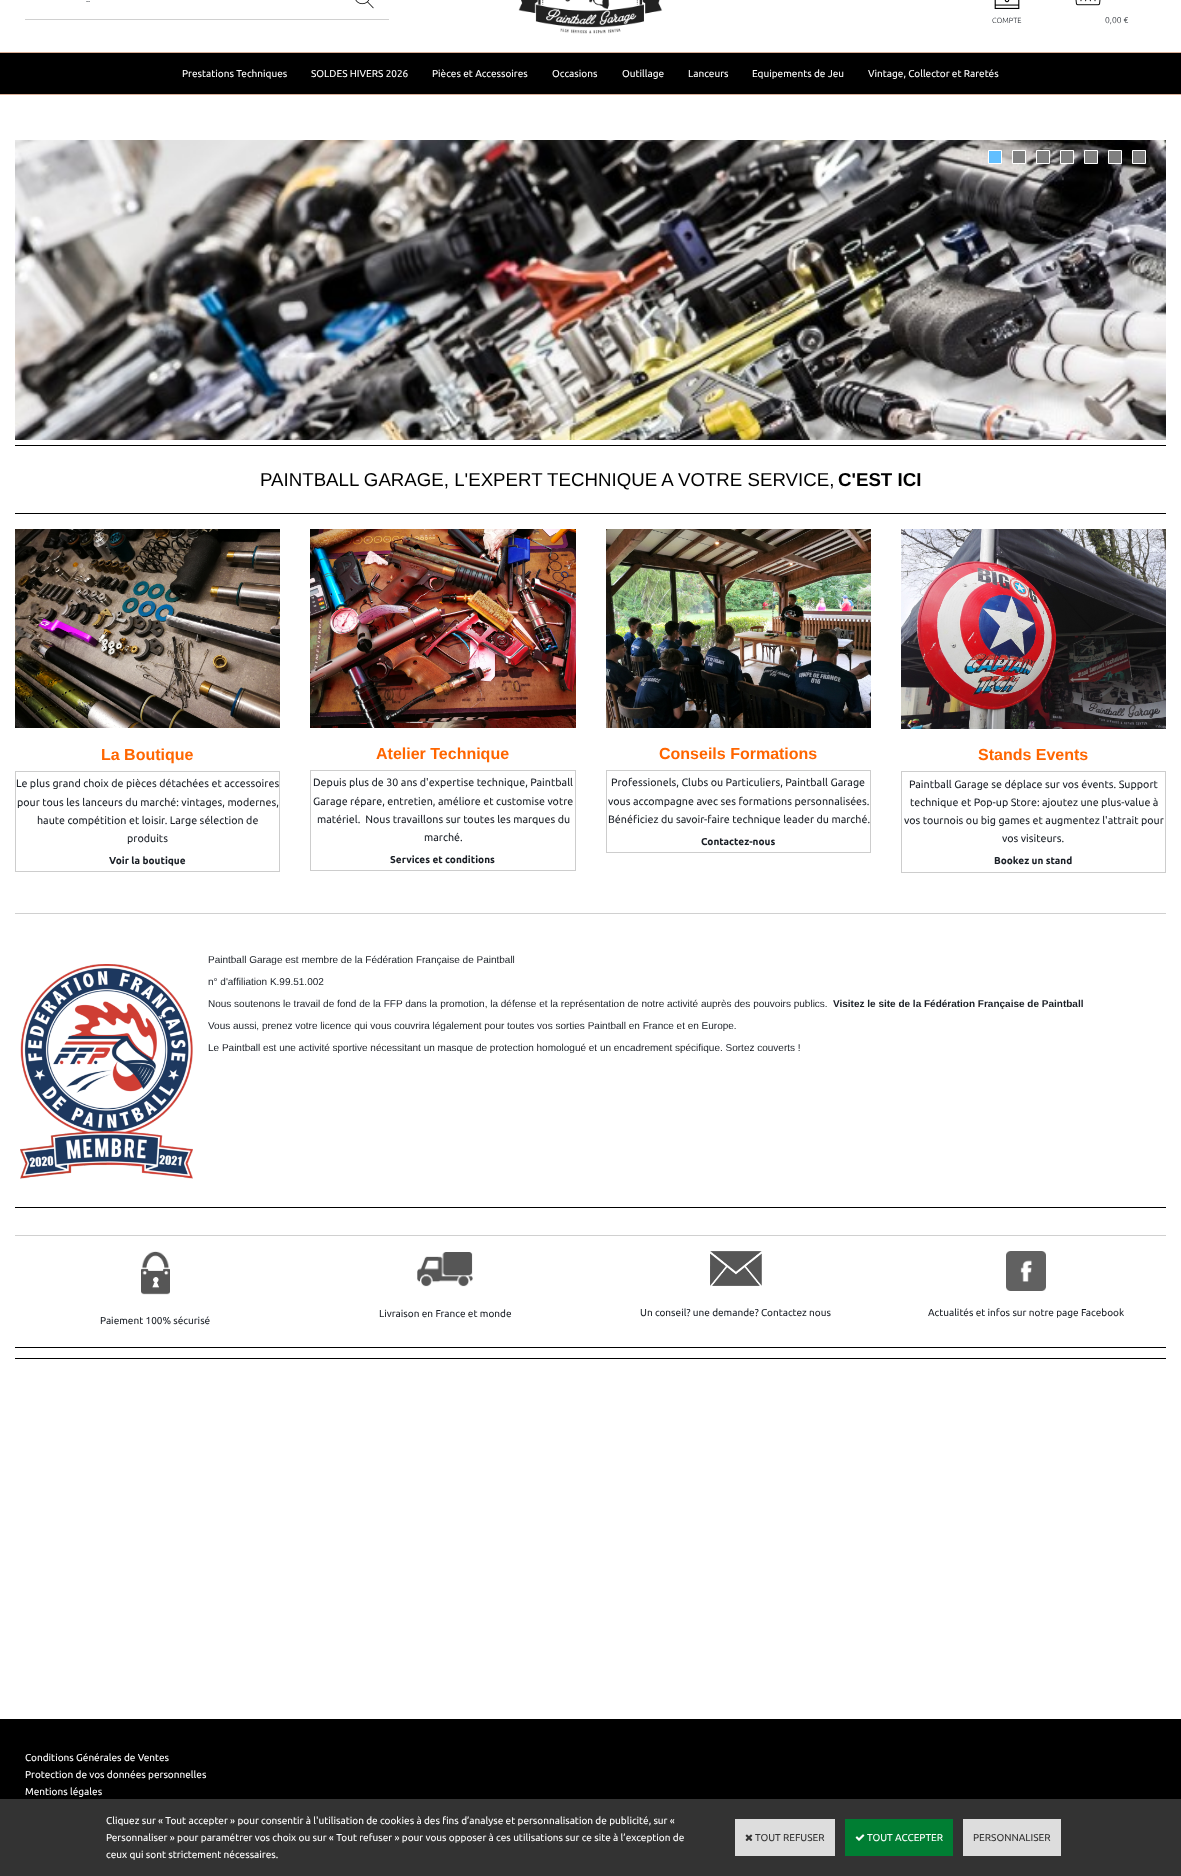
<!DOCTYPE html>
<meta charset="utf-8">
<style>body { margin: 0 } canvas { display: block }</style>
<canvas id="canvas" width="1181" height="1876"></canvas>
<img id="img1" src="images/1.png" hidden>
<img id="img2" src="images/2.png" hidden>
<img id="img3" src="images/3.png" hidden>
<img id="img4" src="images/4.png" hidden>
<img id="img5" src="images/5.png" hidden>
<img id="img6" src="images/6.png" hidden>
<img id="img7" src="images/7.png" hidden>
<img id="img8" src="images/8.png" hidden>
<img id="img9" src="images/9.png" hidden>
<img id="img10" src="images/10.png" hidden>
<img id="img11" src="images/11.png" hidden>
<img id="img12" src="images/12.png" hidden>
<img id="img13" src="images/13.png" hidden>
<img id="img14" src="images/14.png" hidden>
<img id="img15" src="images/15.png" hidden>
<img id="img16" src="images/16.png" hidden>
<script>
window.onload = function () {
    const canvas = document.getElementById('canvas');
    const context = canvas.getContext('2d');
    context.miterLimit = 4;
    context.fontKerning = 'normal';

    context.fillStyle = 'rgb(255, 255, 255)';
    context.fillRect(0, 0, 1181, 1876);
    context.fillStyle = 'rgb(208, 208, 208)';
    context.fillRect(25, 19, 364, 1);
    context.drawImage(document.getElementById('img1'), 355, 0, 19, 9);
    context.drawImage(document.getElementById('img2'), 518, 0, 145, 34);
    context.drawImage(document.getElementById('img3'), 994, 0, 26, 9);
    context.drawImage(document.getElementById('img4'), 1075, 0, 26, 6);
    context.fillStyle = 'rgb(0, 0, 0)';
    context.fillRect(0, 53, 1181, 41);
    context.fillStyle = 'rgb(217, 174, 150)';
    context.fillRect(0, 52, 1181, 1);
    context.fillRect(0, 94, 1181, 1);
    context.drawImage(document.getElementById('img5'), 15, 140, 1151, 300);
    context.fillStyle = 'rgb(97, 191, 255)';
    context.beginPath();
    context.rect(988.5, 150.5, 13, 13);
    context.fill();
    context.strokeStyle = 'rgb(255, 255, 255)';
    context.stroke();
    context.fillStyle = 'rgb(128, 128, 128)';
    context.beginPath();
    context.rect(1012.5, 150.5, 13, 13);
    context.fill();
    context.stroke();
    context.beginPath();
    context.rect(1036.5, 150.5, 13, 13);
    context.fill();
    context.stroke();
    context.beginPath();
    context.rect(1060.5, 150.5, 13, 13);
    context.fill();
    context.stroke();
    context.beginPath();
    context.rect(1084.5, 150.5, 13, 13);
    context.fill();
    context.stroke();
    context.beginPath();
    context.rect(1108.5, 150.5, 13, 13);
    context.fill();
    context.stroke();
    context.beginPath();
    context.rect(1132.5, 150.5, 13, 13);
    context.fill();
    context.stroke();
    context.fillStyle = 'rgb(0, 0, 0)';
    context.fillRect(15, 445, 1151, 1);
    context.fillRect(15, 513, 1151, 1);
    context.drawImage(document.getElementById('img6'), 15, 529, 265, 199);
    context.strokeStyle = 'rgb(205, 205, 205)';
    context.strokeRect(15.5, 771.5, 264, 100);
    context.drawImage(document.getElementById('img7'), 310, 529, 266, 199);
    context.strokeRect(310.5, 770.5, 265, 100);
    context.drawImage(document.getElementById('img8'), 606, 529, 265, 199);
    context.strokeRect(606.5, 770.5, 264, 82);
    context.drawImage(document.getElementById('img9'), 901, 529, 265, 200);
    context.strokeRect(901.5, 771.5, 264, 101);
    context.fillStyle = 'rgb(208, 208, 208)';
    context.fillRect(15, 913, 1151, 1);
    context.drawImage(document.getElementById('img10'), 20, 964, 173, 215);
    context.fillStyle = 'rgb(0, 0, 0)';
    context.fillRect(15, 1207, 1151, 1);
    context.fillStyle = 'rgb(208, 208, 208)';
    context.fillRect(15, 1235, 1151, 1);
    context.drawImage(document.getElementById('img11'), 417, 1252, 56, 35);
    context.drawImage(document.getElementById('img12'), 710, 1251, 52, 35);
    context.drawImage(document.getElementById('img13'), 1006, 1251, 40, 40);
    context.drawImage(document.getElementById('img14'), 141, 1251, 29, 44);
    context.fillStyle = 'rgb(0, 0, 0)';
    context.fillRect(15, 1347, 1151, 1);
    context.fillRect(15, 1358, 1151, 1);
    context.fillRect(0, 1719, 1181, 80);
    context.fillStyle = 'rgb(51, 51, 51)';
    context.fillRect(0, 1799, 1181, 77);
    context.fillStyle = 'rgb(221, 221, 221)';
    context.fillRect(735, 1819, 100, 37);
    context.drawImage(document.getElementById('img15'), 745, 1834, 8, 7);
    context.fillStyle = 'rgb(0, 126, 51)';
    context.fillRect(845, 1819, 108, 37);
    context.drawImage(document.getElementById('img16'), 855, 1834, 10, 7);
    context.fillStyle = 'rgb(221, 221, 221)';
    context.fillRect(963, 1819, 98, 37);
    context.font = '8.5px Ubuntu';
    context.fillStyle = 'rgb(26, 31, 38)';
    context.fillText('..', 86, 2);
    context.font = '300 7.5px Ubuntu';
    context.fillText('COMPTE', 992, 23);
    context.font = '300 8.5px Ubuntu';
    context.fillText('0,00 €', 1105, 23);
    context.font = '10px Ubuntu';
    context.fillStyle = 'rgb(255, 255, 255)';
    context.fillText('Prestations Techniques', 182, 77);
    context.fillText('SOLDES HIVERS 2026', 311, 77);
    context.fillText('Pièces et Accessoires', 432, 77);
    context.fillText('Occasions', 552, 77);
    context.fillText('Outillage', 622, 77);
    context.fillText('Lanceurs', 688, 77);
    context.fillText('Equipements de Jeu', 752, 77);
    context.fillText('Vintage, Collector et Raretés', 868, 77);
    context.font = '18.7px Liberation Sans';
    context.fillStyle = 'rgb(0, 0, 0)';
    context.fillText('PAINTBALL GARAGE, L\'EXPERT TECHNIQUE A VOTRE SERVICE,', 260, 486);
    context.font = 'bold 18.7px Liberation Sans';
    context.fillText('C\'EST ICI', 838, 486);
    context.font = 'bold 16px Liberation Sans';
    context.fillStyle = 'rgb(255, 102, 0)';
    context.fillText('La Boutique', 101, 760);
    context.font = '10.7px Ubuntu';
    context.fillStyle = 'rgb(26, 31, 38)';
    context.fillText('Le plus grand choix de pièces détachées et accessoires', 16, 787);
    context.fillText('pour tous les lanceurs du marché: vintages, modernes,', 17, 806);
    context.fillText('haute compétition et loisir. Large sélection de', 37, 824);
    context.fillText('produits', 127, 842);
    context.font = 'bold 10px Ubuntu';
    context.fillText('Voir la boutique', 109, 864);
    context.font = 'bold 16px Liberation Sans';
    context.fillStyle = 'rgb(255, 102, 0)';
    context.fillText('Atelier Technique', 376, 759);
    context.font = '10.7px Ubuntu';
    context.fillStyle = 'rgb(26, 31, 38)';
    context.fillText('Depuis plus de 30 ans d\'expertise technique, Paintball', 313, 786);
    context.fillText('Garage répare, entretien, améliore et customise votre', 313, 805);
    context.fillText('matériel.  Nous travaillons sur toutes les marques du', 317, 823);
    context.fillText('marché.', 424, 841);
    context.font = 'bold 10px Ubuntu';
    context.fillText('Services et conditions', 390, 863);
    context.font = 'bold 16px Liberation Sans';
    context.fillStyle = 'rgb(255, 102, 0)';
    context.fillText('Conseils Formations', 659, 759);
    context.font = '10.7px Ubuntu';
    context.fillStyle = 'rgb(26, 31, 38)';
    context.fillText('Professionels, Clubs ou Particuliers, Paintball Garage', 611, 786);
    context.fillText('vous accompagne avec ses formations personnalisées.', 608, 805);
    context.fillText('Bénéficiez du savoir-faire technique leader du marché.', 608, 823);
    context.font = 'bold 10px Ubuntu';
    context.fillText('Contactez-nous', 701, 845);
    context.font = 'bold 16px Liberation Sans';
    context.fillStyle = 'rgb(255, 102, 0)';
    context.fillText('Stands Events', 978, 760);
    context.font = '10.7px Ubuntu';
    context.fillStyle = 'rgb(26, 31, 38)';
    context.fillText('Paintball Garage se déplace sur vos évents. Support', 909, 788);
    context.fillText('technique et Pop-up Store: ajoutez une plus-value à', 910, 806);
    context.fillText('vos tournois ou big games et augmentez l\'attrait pour', 904, 824);
    context.fillText('vos visiteurs.', 1002, 842);
    context.font = 'bold 10px Ubuntu';
    context.fillText('Bookez un stand', 994, 864);
    context.font = '10px Liberation Sans';
    context.fillText('Paintball Garage est membre de la Fédération Française de Paintball', 208, 963);
    context.fillText('n° d\'affiliation K.99.51.002', 208, 985);
    context.fillText('Nous soutenons le travail de fond de la FFP dans la promotion, la défense et la représentation de notre activité auprès des pouvoirs publics.', 208, 1007);
    context.font = 'bold 10px Liberation Sans';
    context.fillText('Visitez le site de la Fédération Française de Paintball', 833, 1007);
    context.font = '10px Liberation Sans';
    context.fillText('Vous aussi, prenez votre licence qui vous couvrira légalement pour toutes vos sorties Paintball en France et en Europe.', 208, 1029);
    context.fillText('Le Paintball est une activité sportive nécessitant un masque de protection homologué et un encadrement spécifique. Sortez couverts !', 208, 1051);
    context.font = '10px Ubuntu';
    context.fillText('Livraison en France et monde', 379, 1317);
    context.fillText('Un conseil? une demande? Contactez nous', 640, 1316);
    context.fillText('Actualités et infos sur notre page Facebook', 928, 1316);
    context.fillText('Paiement 100% sécurisé', 100, 1324);
    context.fillStyle = 'rgb(255, 255, 255)';
    context.fillText('Conditions Générales de Ventes', 25, 1761);
    context.fillText('Protection de vos données personnelles', 25, 1778);
    context.fillText('Mentions légales', 25, 1795);
    context.fillText('Cliquez sur « Tout accepter » pour consentir à l\'utilisation de cookies à des fins d’analyse et personnalisation de publicité, sur «', 106, 1824);
    context.fillText('Personnaliser » pour paramétrer vos choix ou sur « Tout refuser » pour vous opposer à ces utilisations sur ce site à l’exception de', 106, 1841);
    context.fillText('ceux qui sont strictement nécessaires.', 106, 1858);
    context.fillStyle = 'rgb(51, 51, 51)';
    context.fillText('TOUT REFUSER', 755, 1841);
    context.fillStyle = 'rgb(255, 255, 255)';
    context.fillText('TOUT ACCEPTER', 867, 1841);
    context.fillStyle = 'rgb(51, 51, 51)';
    context.fillText('PERSONNALISER', 973, 1841);
};
</script>
